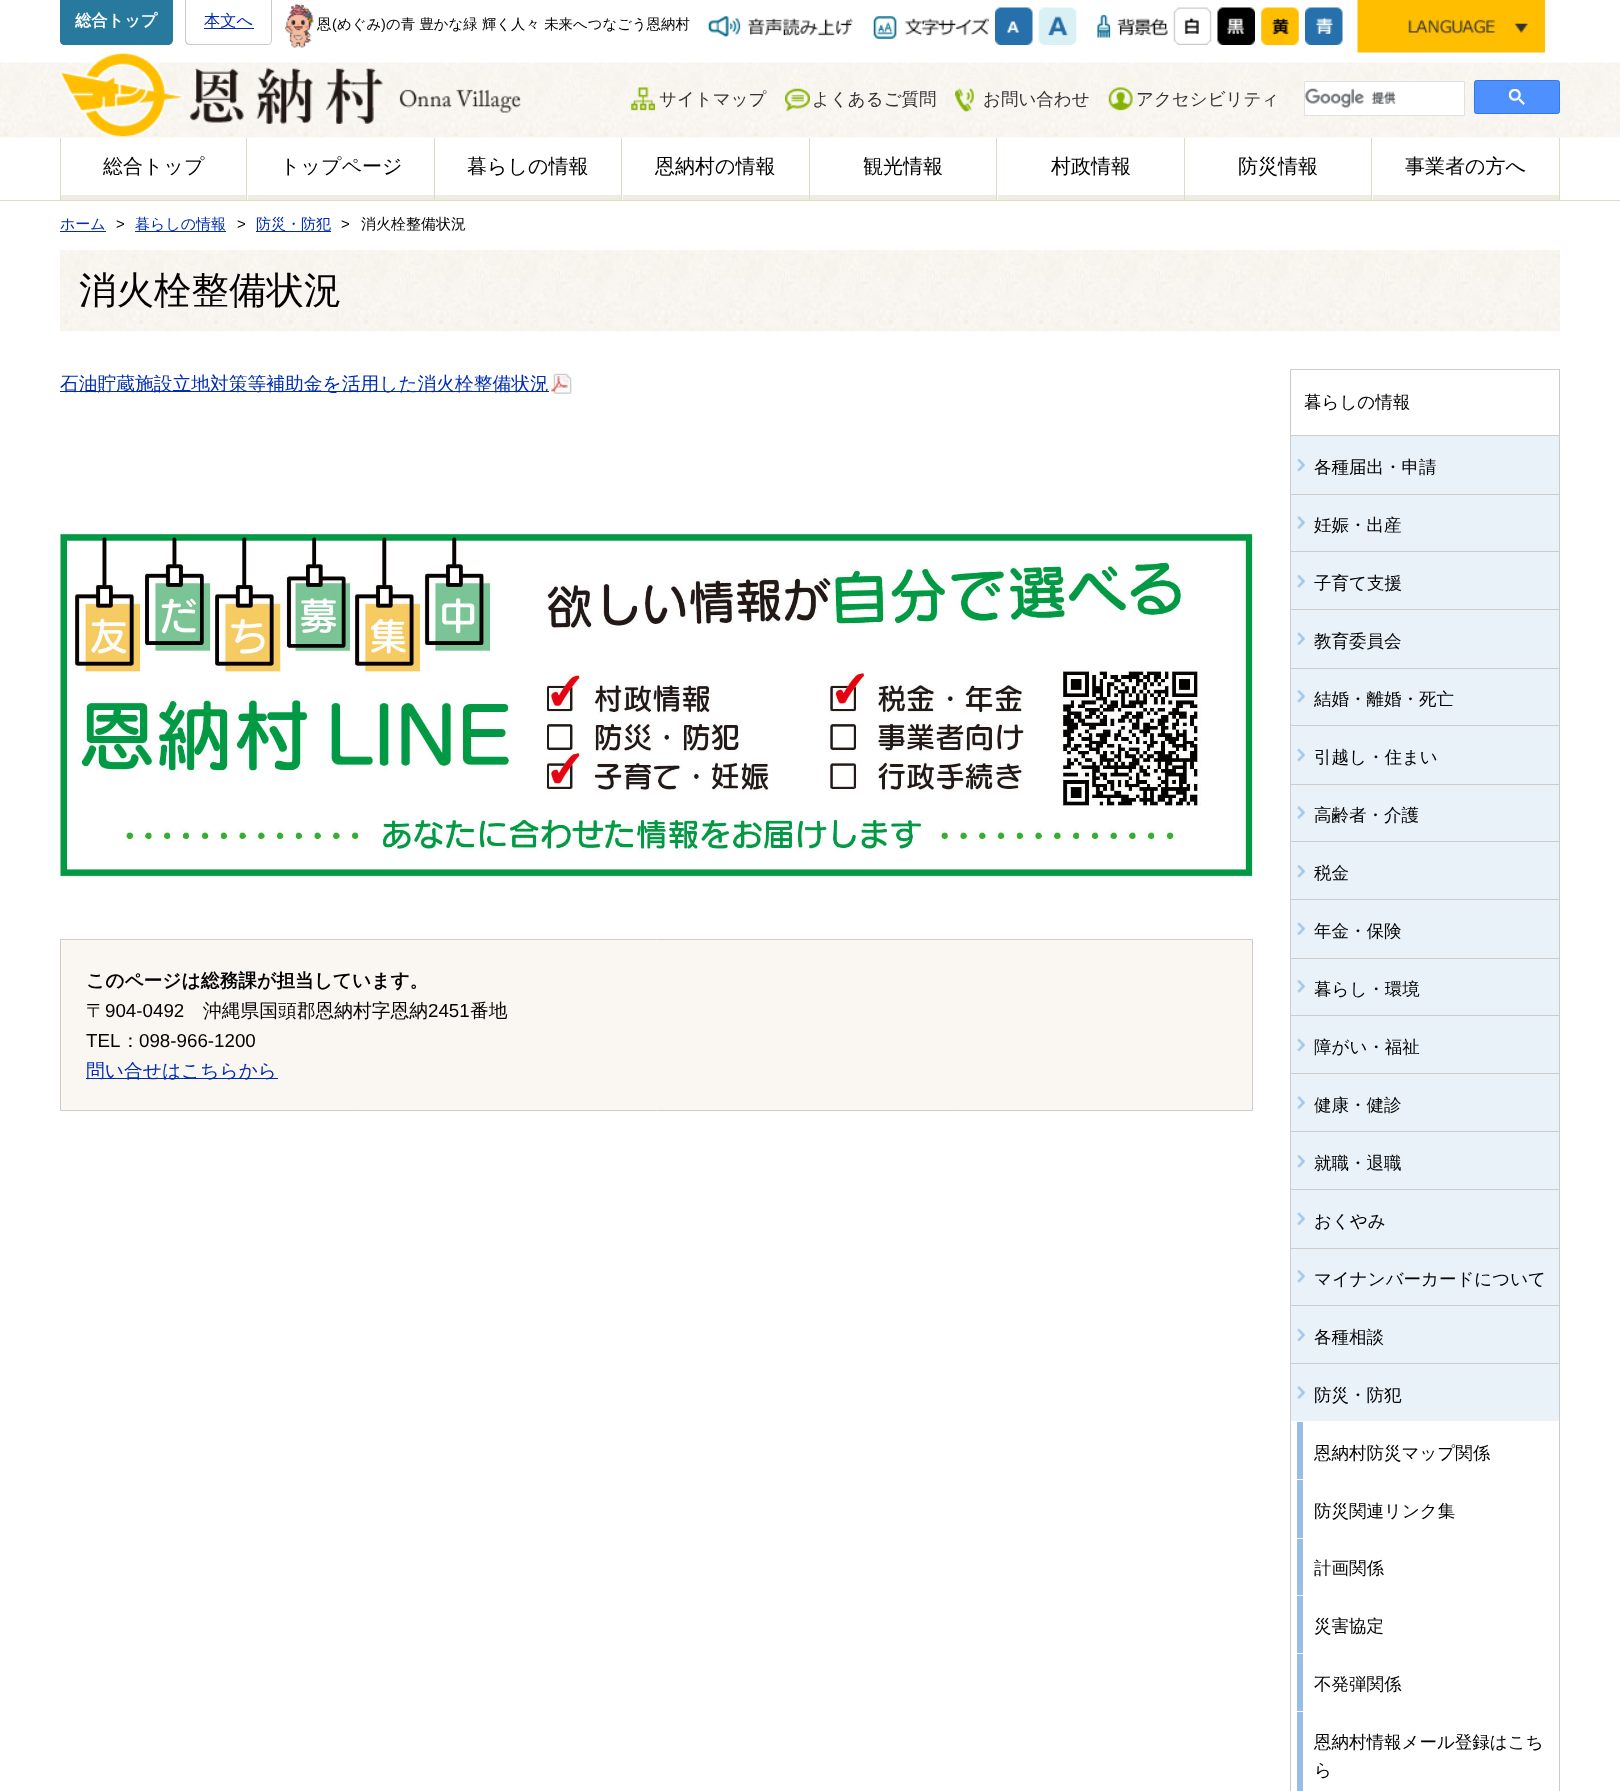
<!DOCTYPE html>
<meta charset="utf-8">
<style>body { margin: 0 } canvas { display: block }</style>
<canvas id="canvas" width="1620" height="1791"></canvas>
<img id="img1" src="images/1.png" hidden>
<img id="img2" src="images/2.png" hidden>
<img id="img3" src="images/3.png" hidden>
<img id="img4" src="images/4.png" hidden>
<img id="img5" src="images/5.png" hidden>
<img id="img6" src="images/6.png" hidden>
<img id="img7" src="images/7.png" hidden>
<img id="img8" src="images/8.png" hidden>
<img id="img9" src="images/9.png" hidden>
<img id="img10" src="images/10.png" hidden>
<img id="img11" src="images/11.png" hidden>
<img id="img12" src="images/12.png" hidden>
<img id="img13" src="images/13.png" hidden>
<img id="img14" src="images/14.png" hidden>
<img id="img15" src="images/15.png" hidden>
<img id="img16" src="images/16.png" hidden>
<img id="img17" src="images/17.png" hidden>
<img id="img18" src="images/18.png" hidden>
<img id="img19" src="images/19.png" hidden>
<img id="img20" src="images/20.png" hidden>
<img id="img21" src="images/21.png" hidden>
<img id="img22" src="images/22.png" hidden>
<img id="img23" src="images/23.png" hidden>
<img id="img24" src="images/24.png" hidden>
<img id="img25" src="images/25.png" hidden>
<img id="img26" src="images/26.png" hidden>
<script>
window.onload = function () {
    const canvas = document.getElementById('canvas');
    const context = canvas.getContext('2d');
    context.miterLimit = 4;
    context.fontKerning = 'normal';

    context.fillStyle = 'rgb(255, 255, 255)';
    context.fillRect(0, 0, 1620, 1791);
    context.drawImage(document.getElementById('img1'), 0, 62, 1620, 76);
    context.fillStyle = 'rgb(221, 221, 193)';
    context.fillRect(0, 200, 1620, 1);
    context.fillStyle = 'rgb(39, 122, 158)';
    context.beginPath();
    context.roundRect(60, 0, 113, 45, [0, 0, 5, 5]);
    context.fill();
    context.beginPath();
    context.moveTo(60, 0);
    context.lineTo(172, 0);
    context.lineTo(172, 40);
    context.bezierCurveTo(172, 43, 170, 45, 168, 45);
    context.lineTo(65, 45);
    context.bezierCurveTo(62, 45, 60, 43, 60, 40);
    context.closePath();
    context.moveTo(61, 0);
    context.lineTo(171, 0);
    context.lineTo(171, 40);
    context.bezierCurveTo(171, 42, 170, 44, 168, 44);
    context.lineTo(65, 44);
    context.bezierCurveTo(63, 44, 61, 42, 61, 40);
    context.closePath();
    context.fill('evenodd');
    context.fillStyle = 'rgb(204, 204, 204)';
    context.beginPath();
    context.moveTo(185, 0);
    context.lineTo(272, 0);
    context.lineTo(272, 40);
    context.bezierCurveTo(272, 43, 270, 45, 268, 45);
    context.lineTo(190, 45);
    context.bezierCurveTo(187, 45, 185, 43, 185, 40);
    context.closePath();
    context.moveTo(186, 0);
    context.lineTo(271, 0);
    context.lineTo(271, 40);
    context.bezierCurveTo(271, 42, 270, 44, 268, 44);
    context.lineTo(190, 44);
    context.bezierCurveTo(188, 44, 186, 42, 186, 40);
    context.closePath();
    context.fill('evenodd');
    context.fillStyle = 'rgb(0, 44, 178)';
    context.fillRect(204, 28, 50, 1);
    context.drawImage(document.getElementById('img2'), 285, 3, 29, 45);
    context.drawImage(document.getElementById('img3'), 708, 16, 145, 21);
    context.drawImage(document.getElementById('img4'), 873, 16, 116, 23);
    context.drawImage(document.getElementById('img5'), 995, 7, 38, 38);
    context.drawImage(document.getElementById('img6'), 1038, 7, 39, 38);
    context.drawImage(document.getElementById('img7'), 1097, 14, 71, 24);
    context.drawImage(document.getElementById('img8'), 1173, 7, 39, 38);
    context.drawImage(document.getElementById('img9'), 1217, 7, 38, 38);
    context.drawImage(document.getElementById('img10'), 1261, 7, 38, 38);
    context.drawImage(document.getElementById('img11'), 1305, 7, 38, 38);
    context.drawImage(document.getElementById('img12'), 1357, 0, 188, 53);
    context.drawImage(document.getElementById('img13'), 60, 53, 461, 85);
    context.drawImage(document.getElementById('img14'), 631, 87, 24, 24);
    context.drawImage(document.getElementById('img15'), 785, 88, 25, 24);
    context.drawImage(document.getElementById('img16'), 955, 88, 19, 24);
    context.drawImage(document.getElementById('img17'), 1108, 87, 25, 24);
    context.fillStyle = 'rgb(255, 255, 255)';
    context.beginPath();
    context.rect(1304.5, 81.5, 160, 34);
    context.fill();
    context.strokeStyle = 'rgb(223, 225, 229)';
    context.stroke();
    context.drawImage(document.getElementById('img18'), 1305, 88, 91, 20);
    context.fillStyle = 'rgb(77, 144, 254)';
    context.beginPath();
    context.roundRect(1474.5, 80.5, 85, 33, 2);
    context.fill();
    context.strokeStyle = 'rgb(48, 121, 237)';
    context.stroke();
    context.drawImage(document.getElementById('img19'), 1509, 89, 16, 16);
    context.fillStyle = 'rgb(221, 221, 193)';
    context.fillRect(246, 138, 1, 62);
    context.fillRect(60, 138, 1, 62);
    context.fillStyle = 'rgb(239, 236, 227)';
    context.fillRect(61, 195, 185, 5);
    context.fillStyle = 'rgb(221, 221, 193)';
    context.fillRect(434, 138, 1, 62);
    context.fillStyle = 'rgb(239, 236, 227)';
    context.fillRect(248, 195, 186, 5);
    context.fillStyle = 'rgb(221, 221, 193)';
    context.fillRect(621, 138, 1, 62);
    context.fillStyle = 'rgb(239, 236, 227)';
    context.fillRect(435, 195, 186, 5);
    context.fillStyle = 'rgb(221, 221, 193)';
    context.fillRect(809, 138, 1, 62);
    context.fillStyle = 'rgb(239, 236, 227)';
    context.fillRect(623, 195, 186, 5);
    context.fillStyle = 'rgb(221, 221, 193)';
    context.fillRect(996, 138, 1, 62);
    context.fillStyle = 'rgb(239, 236, 227)';
    context.fillRect(810, 195, 186, 5);
    context.fillStyle = 'rgb(221, 221, 193)';
    context.fillRect(1184, 138, 1, 62);
    context.fillStyle = 'rgb(239, 236, 227)';
    context.fillRect(998, 195, 186, 5);
    context.fillStyle = 'rgb(221, 221, 193)';
    context.fillRect(1371, 138, 1, 62);
    context.fillStyle = 'rgb(239, 236, 227)';
    context.fillRect(1185, 195, 186, 5);
    context.fillStyle = 'rgb(221, 221, 193)';
    context.fillRect(1559, 138, 1, 62);
    context.fillStyle = 'rgb(239, 236, 227)';
    context.fillRect(1373, 195, 186, 5);
    context.fillStyle = 'rgb(0, 44, 178)';
    context.fillRect(60, 231, 46, 1);
    context.fillRect(135, 231, 91, 1);
    context.fillRect(256, 231, 75, 1);
    context.drawImage(document.getElementById('img20'), 60, 250, 1500, 82);
    context.fillRect(60, 391, 489, 1);
    context.drawImage(document.getElementById('img21'), 551, 373, 21, 21);
    context.drawImage(document.getElementById('img22'), 60, 533, 1193, 344);
    context.fillStyle = 'rgb(250, 247, 242)';
    context.beginPath();
    context.rect(60.5, 939.5, 1192, 171);
    context.fill();
    context.strokeStyle = 'rgb(204, 204, 204)';
    context.stroke();
    context.fillStyle = 'rgb(0, 44, 178)';
    context.fillRect(86, 1078, 192, 1);
    context.strokeRect(1290.5, 369.5, 269, 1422);
    context.fillStyle = 'rgb(233, 242, 249)';
    context.fillRect(1291, 436, 268, 58);
    context.drawImage(document.getElementById('img23'), 1297, 458, 8, 14);
    context.fillStyle = 'rgb(204, 204, 204)';
    context.fillRect(1291, 435, 268, 1);
    context.fillStyle = 'rgb(233, 242, 249)';
    context.fillRect(1291, 495, 268, 56);
    context.drawImage(document.getElementById('img24'), 1297, 516, 8, 13);
    context.fillStyle = 'rgb(204, 204, 204)';
    context.fillRect(1291, 494, 268, 1);
    context.fillStyle = 'rgb(233, 242, 249)';
    context.fillRect(1291, 552, 268, 57);
    context.drawImage(document.getElementById('img25'), 1297, 575, 8, 13);
    context.fillStyle = 'rgb(204, 204, 204)';
    context.fillRect(1291, 551, 268, 1);
    context.fillStyle = 'rgb(233, 242, 249)';
    context.fillRect(1291, 610, 268, 58);
    context.drawImage(document.getElementById('img26'), 1297, 632, 8, 13);
    context.fillStyle = 'rgb(204, 204, 204)';
    context.fillRect(1291, 609, 268, 1);
    context.fillStyle = 'rgb(233, 242, 249)';
    context.fillRect(1291, 669, 268, 56);
    context.drawImage(document.getElementById('img25'), 1297, 690, 8, 13);
    context.fillStyle = 'rgb(204, 204, 204)';
    context.fillRect(1291, 668, 268, 1);
    context.fillStyle = 'rgb(233, 242, 249)';
    context.fillRect(1291, 726, 268, 58);
    context.drawImage(document.getElementById('img23'), 1297, 748, 8, 14);
    context.fillStyle = 'rgb(204, 204, 204)';
    context.fillRect(1291, 725, 268, 1);
    context.fillStyle = 'rgb(233, 242, 249)';
    context.fillRect(1291, 785, 268, 56);
    context.drawImage(document.getElementById('img24'), 1297, 806, 8, 13);
    context.fillStyle = 'rgb(204, 204, 204)';
    context.fillRect(1291, 784, 268, 1);
    context.fillStyle = 'rgb(233, 242, 249)';
    context.fillRect(1291, 842, 268, 57);
    context.drawImage(document.getElementById('img25'), 1297, 865, 8, 13);
    context.fillStyle = 'rgb(204, 204, 204)';
    context.fillRect(1291, 841, 268, 1);
    context.fillStyle = 'rgb(233, 242, 249)';
    context.fillRect(1291, 900, 268, 58);
    context.drawImage(document.getElementById('img26'), 1297, 922, 8, 13);
    context.fillStyle = 'rgb(204, 204, 204)';
    context.fillRect(1291, 899, 268, 1);
    context.fillStyle = 'rgb(233, 242, 249)';
    context.fillRect(1291, 959, 268, 56);
    context.drawImage(document.getElementById('img25'), 1297, 980, 8, 13);
    context.fillStyle = 'rgb(204, 204, 204)';
    context.fillRect(1291, 958, 268, 1);
    context.fillStyle = 'rgb(233, 242, 249)';
    context.fillRect(1291, 1016, 268, 57);
    context.drawImage(document.getElementById('img23'), 1297, 1038, 8, 14);
    context.fillStyle = 'rgb(204, 204, 204)';
    context.fillRect(1291, 1015, 268, 1);
    context.fillStyle = 'rgb(233, 242, 249)';
    context.fillRect(1291, 1074, 268, 57);
    context.drawImage(document.getElementById('img24'), 1297, 1096, 8, 13);
    context.fillStyle = 'rgb(204, 204, 204)';
    context.fillRect(1291, 1073, 268, 1);
    context.fillStyle = 'rgb(233, 242, 249)';
    context.fillRect(1291, 1132, 268, 57);
    context.drawImage(document.getElementById('img25'), 1297, 1155, 8, 13);
    context.fillStyle = 'rgb(204, 204, 204)';
    context.fillRect(1291, 1131, 268, 1);
    context.fillStyle = 'rgb(233, 242, 249)';
    context.fillRect(1291, 1190, 268, 58);
    context.drawImage(document.getElementById('img26'), 1297, 1212, 8, 13);
    context.fillStyle = 'rgb(204, 204, 204)';
    context.fillRect(1291, 1189, 268, 1);
    context.fillStyle = 'rgb(233, 242, 249)';
    context.fillRect(1291, 1249, 268, 56);
    context.drawImage(document.getElementById('img25'), 1297, 1270, 8, 13);
    context.fillStyle = 'rgb(204, 204, 204)';
    context.fillRect(1291, 1248, 268, 1);
    context.fillStyle = 'rgb(233, 242, 249)';
    context.fillRect(1291, 1306, 268, 57);
    context.drawImage(document.getElementById('img23'), 1297, 1328, 8, 14);
    context.fillStyle = 'rgb(204, 204, 204)';
    context.fillRect(1291, 1305, 268, 1);
    context.fillStyle = 'rgb(233, 242, 249)';
    context.fillRect(1291, 1364, 268, 57);
    context.drawImage(document.getElementById('img24'), 1297, 1386, 8, 13);
    context.fillStyle = 'rgb(204, 204, 204)';
    context.fillRect(1291, 1363, 268, 1);
    context.fillStyle = 'rgb(152, 191, 227)';
    context.fillRect(1297, 1421, 6, 370);
    context.fillStyle = 'rgb(255, 255, 255)';
    context.fillRect(1291, 1421, 12, 1);
    context.fillRect(1291, 1479, 12, 1);
    context.fillRect(1291, 1538, 12, 1);
    context.fillRect(1291, 1595, 12, 1);
    context.fillRect(1291, 1653, 12, 1);
    context.fillRect(1291, 1711, 12, 1);
    context.font = 'bold 16.25px WenQuanYi Zen Hei';
    context.fillText('総合トップ', 75, 26);
    context.font = '500 16.25px WenQuanYi Zen Hei';
    context.fillStyle = 'rgb(0, 44, 178)';
    context.fillText('本文へ', 204, 26);
    context.font = '500 14.4px WenQuanYi Zen Hei';
    context.fillStyle = 'rgb(0, 0, 0)';
    context.fillText('恩', 317, 29);
    context.font = '14.4px Liberation Sans';
    context.fillText('(', 332, 29);
    context.font = '500 14.4px WenQuanYi Zen Hei';
    context.fillText('めぐみ', 337, 29);
    context.font = '14.4px Liberation Sans';
    context.fillText(')', 381, 29);
    context.font = '500 14.4px WenQuanYi Zen Hei';
    context.fillText('の青 豊かな緑 輝く人々 未来へつなごう恩納村', 386, 29);
    context.font = '500 17.5px WenQuanYi Zen Hei';
    context.fillStyle = 'rgb(51, 51, 51)';
    context.fillText('サイトマップ', 659, 105);
    context.fillText('よくあるご質問', 812, 105);
    context.fillText('お問い合わせ', 983, 105);
    context.fillText('アクセシビリティ', 1136, 105);
    context.font = '500 20px WenQuanYi Zen Hei';
    context.fillStyle = 'rgb(0, 0, 0)';
    context.fillText('総合トップ', 103, 173);
    context.fillText('トップページ', 280, 173);
    context.fillText('暮らしの情報', 467, 173);
    context.fillText('恩納村の情報', 655, 173);
    context.fillText('観光情報', 863, 173);
    context.fillText('村政情報', 1051, 173);
    context.fillText('防災情報', 1238, 173);
    context.fillText('事業者の方へ', 1405, 173);
    context.font = '500 15px WenQuanYi Zen Hei';
    context.fillStyle = 'rgb(0, 44, 178)';
    context.fillText('ホーム', 60, 229);
    context.font = '15px Liberation Sans';
    context.fillStyle = 'rgb(0, 0, 0)';
    context.fillText('>', 116, 229);
    context.font = '500 15px WenQuanYi Zen Hei';
    context.fillStyle = 'rgb(0, 44, 178)';
    context.fillText('暮らしの情報', 135, 229);
    context.font = '15px Liberation Sans';
    context.fillStyle = 'rgb(0, 0, 0)';
    context.fillText('>', 237, 229);
    context.font = '500 15px WenQuanYi Zen Hei';
    context.fillStyle = 'rgb(0, 44, 178)';
    context.fillText('防災・防犯', 256, 229);
    context.font = '15px Liberation Sans';
    context.fillStyle = 'rgb(0, 0, 0)';
    context.fillText('>', 341, 229);
    context.font = '500 15px WenQuanYi Zen Hei';
    context.fillText('消火栓整備状況', 361, 229);
    context.font = '500 37.5px WenQuanYi Zen Hei';
    context.fillText('消火栓整備状況', 79, 303);
    context.font = '500 18.75px WenQuanYi Zen Hei';
    context.fillStyle = 'rgb(0, 44, 178)';
    context.fillText('石油貯蔵施設立地対策等補助金を活用した消火栓整備状況', 60, 390);
    context.font = 'bold 18.75px WenQuanYi Zen Hei';
    context.fillStyle = 'rgb(0, 0, 0)';
    context.fillText('このページは総務課が担当しています。', 86, 987);
    context.font = '500 18.75px WenQuanYi Zen Hei';
    context.fillText('〒', 86, 1017);
    context.font = '18.75px Liberation Sans';
    context.fillText('904-0492', 105, 1017);
    context.font = '500 18.75px WenQuanYi Zen Hei';
    context.fillText('沖縄県国頭郡恩納村字恩納', 203, 1017);
    context.font = '18.75px Liberation Sans';
    context.fillText('2451', 428, 1017);
    context.font = '500 18.75px WenQuanYi Zen Hei';
    context.fillText('番地', 470, 1017);
    context.font = '18.75px Liberation Sans';
    context.fillText('TEL', 86, 1047);
    context.font = '500 18.75px WenQuanYi Zen Hei';
    context.fillText('：', 121, 1047);
    context.font = '18.75px Liberation Sans';
    context.fillText('098-966-1200', 139, 1047);
    context.font = '500 18.75px WenQuanYi Zen Hei';
    context.fillStyle = 'rgb(0, 44, 178)';
    context.fillText('問い合せはこちらから', 86, 1077);
    context.font = '500 17.5px WenQuanYi Zen Hei';
    context.fillStyle = 'rgb(0, 0, 0)';
    context.fillText('暮らしの情報', 1304, 408);
    context.fillText('各種届出・申請', 1314, 473);
    context.fillText('妊娠・出産', 1314, 531);
    context.fillText('子育て支援', 1314, 589);
    context.fillText('教育委員会', 1314, 647);
    context.fillText('結婚・離婚・死亡', 1314, 705);
    context.fillText('引越し・住まい', 1314, 763);
    context.fillText('高齢者・介護', 1314, 821);
    context.fillText('税金', 1314, 879);
    context.fillText('年金・保険', 1314, 937);
    context.fillText('暮らし・環境', 1314, 995);
    context.fillText('障がい・福祉', 1314, 1053);
    context.fillText('健康・健診', 1314, 1111);
    context.fillText('就職・退職', 1314, 1169);
    context.fillText('おくやみ', 1314, 1227);
    context.fillText('マイナンバーカードについて', 1314, 1285);
    context.fillText('各種相談', 1314, 1343);
    context.fillText('防災・防犯', 1314, 1401);
    context.fillText('恩納村防災マップ関係', 1314, 1459);
    context.fillText('防災関連リンク集', 1314, 1517);
    context.fillText('計画関係', 1314, 1574);
    context.fillText('災害協定', 1314, 1632);
    context.fillText('不発弾関係', 1314, 1690);
    context.fillText('恩納村情報メール登録はこち', 1314, 1748);
    context.fillText('ら', 1314, 1776);
};
</script>
